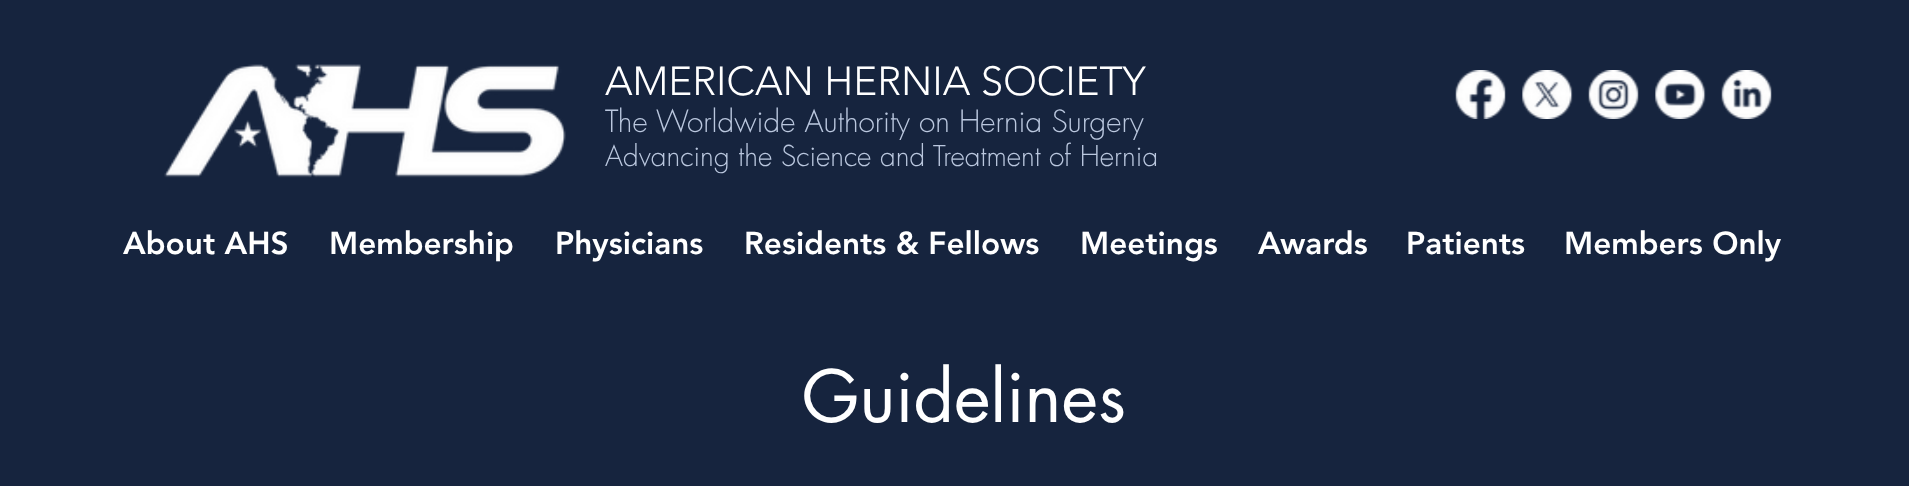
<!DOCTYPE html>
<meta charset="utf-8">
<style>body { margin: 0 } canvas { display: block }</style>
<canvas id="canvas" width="1909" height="486"></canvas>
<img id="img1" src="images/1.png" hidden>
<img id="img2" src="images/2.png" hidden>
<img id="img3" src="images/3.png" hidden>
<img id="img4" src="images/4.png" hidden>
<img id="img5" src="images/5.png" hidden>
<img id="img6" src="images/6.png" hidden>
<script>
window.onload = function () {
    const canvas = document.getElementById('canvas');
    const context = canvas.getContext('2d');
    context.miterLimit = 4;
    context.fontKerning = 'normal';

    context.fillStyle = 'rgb(22, 36, 62)';
    context.fillRect(0, 0, 1909, 486);
    context.drawImage(document.getElementById('img1'), 164, 64, 402, 114);
    context.drawImage(document.getElementById('img2'), 1455, 70, 51, 49);
    context.drawImage(document.getElementById('img3'), 1522, 70, 51, 49);
    context.drawImage(document.getElementById('img4'), 1588, 70, 51, 49);
    context.drawImage(document.getElementById('img5'), 1655, 70, 51, 49);
    context.drawImage(document.getElementById('img6'), 1721, 70, 51, 49);
    context.font = '300 40.25px "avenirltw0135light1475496"';
    context.fillStyle = 'rgb(255, 255, 255)';
    context.fillText('AMERICAN HERNIA SOCIETY', 605, 95);
    context.font = '300 29.75px futura';
    context.fillStyle = 'rgb(186, 199, 222)';
    context.fillText('The Worldwide Authority on Hernia Surgery', 605, 132);
    context.font = '300 28px futura';
    context.fillText('Advancing the Science and Treatment of Hernia', 605, 166);
    context.font = '900 31.5px "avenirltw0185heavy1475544"';
    context.fillStyle = 'rgb(255, 255, 255)';
    context.fillText('About AHS', 123, 254);
    context.fillText('Membership', 329, 254);
    context.fillText('Physicians', 555, 254);
    context.fillText('Residents & Fellows', 744, 254);
    context.fillText('Meetings', 1080, 254);
    context.fillText('Awards', 1258, 254);
    context.fillText('Patients', 1406, 254);
    context.fillText('Members Only', 1564, 254);
    context.font = '70px futura';
    context.fillText('Guidelines', 802, 422);
};
</script>
